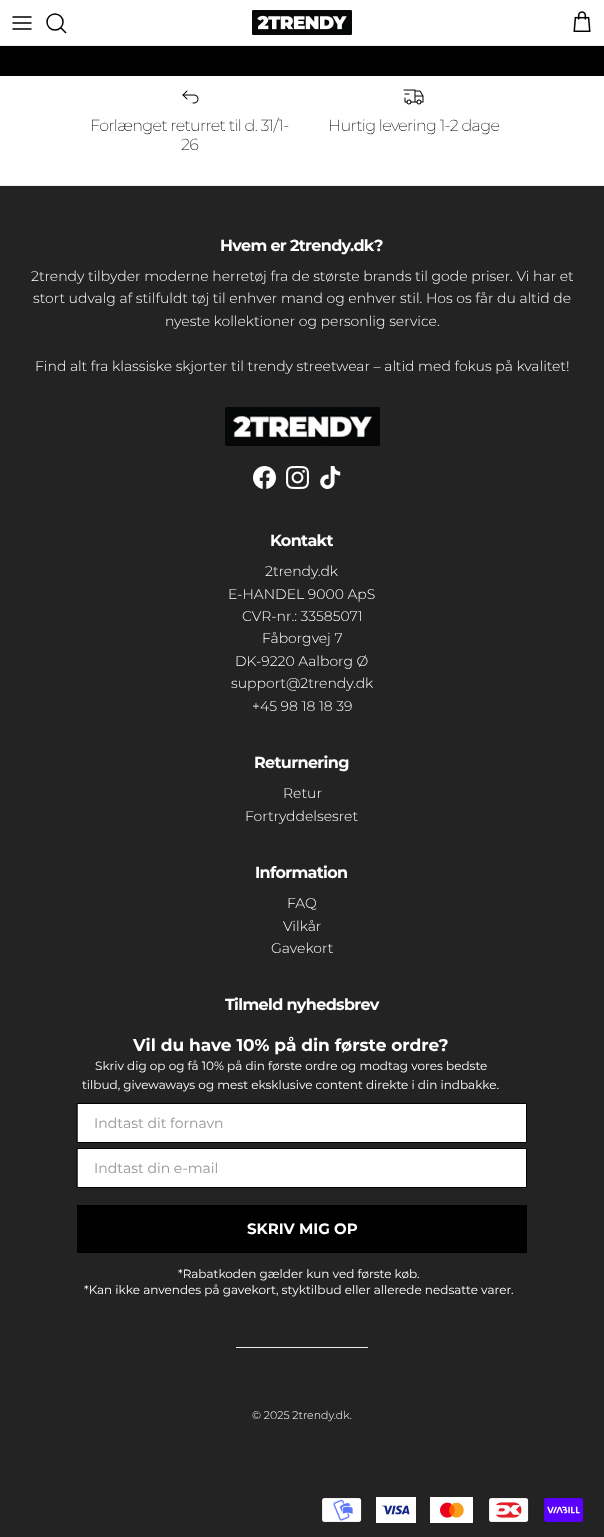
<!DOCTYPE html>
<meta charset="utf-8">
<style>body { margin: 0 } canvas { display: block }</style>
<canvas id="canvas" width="604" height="1537"></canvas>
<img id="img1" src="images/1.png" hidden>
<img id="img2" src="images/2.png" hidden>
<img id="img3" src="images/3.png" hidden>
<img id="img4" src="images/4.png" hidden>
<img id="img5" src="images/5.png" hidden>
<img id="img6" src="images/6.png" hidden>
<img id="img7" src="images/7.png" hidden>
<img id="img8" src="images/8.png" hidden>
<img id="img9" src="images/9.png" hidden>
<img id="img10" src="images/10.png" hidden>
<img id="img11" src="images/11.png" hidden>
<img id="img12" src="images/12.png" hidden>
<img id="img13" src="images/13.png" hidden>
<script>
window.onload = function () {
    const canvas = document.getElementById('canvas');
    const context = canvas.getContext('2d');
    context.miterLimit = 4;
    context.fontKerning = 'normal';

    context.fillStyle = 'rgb(255, 255, 255)';
    context.fillRect(0, 0, 604, 1537);
    context.fillStyle = 'rgb(236, 236, 236)';
    context.fillRect(0, 45, 604, 1);
    context.beginPath();
    context.moveTo(13, 23);
    context.lineTo(31, 23);
    context.moveTo(13, 17);
    context.lineTo(31, 17);
    context.moveTo(13, 29);
    context.lineTo(31, 29);
    context.strokeStyle = 'rgb(0, 0, 0)';
    context.lineWidth = 1.5;
    context.lineCap = 'round';
    context.lineJoin = 'round';
    context.stroke();
    context.beginPath();
    context.arc(55, 22, 8, 0, 2 * Math.PI);
    context.stroke();
    context.beginPath();
    context.moveTo(61, 28);
    context.lineTo(65.5, 32.5);
    context.lineCap = 'square';
    context.lineJoin = 'miter';
    context.stroke();
    context.drawImage(document.getElementById('img1'), 252, 10, 100, 25);
    context.drawImage(document.getElementById('img2'), 573, 11, 18, 21);
    context.fillStyle = 'rgb(0, 0, 0)';
    context.fillRect(0, 46, 604, 30);
    context.drawImage(document.getElementById('img3'), 182, 90, 17, 14);
    context.drawImage(document.getElementById('img4'), 403, 89, 21, 16);
    context.fillStyle = 'rgb(35, 35, 35)';
    context.fillRect(0, 186, 604, 1351);
    context.fillStyle = 'rgb(236, 236, 236)';
    context.fillRect(0, 185, 604, 1);
    context.drawImage(document.getElementById('img5'), 225, 407, 155, 39);
    context.drawImage(document.getElementById('img6'), 253, 466, 23, 23);
    context.drawImage(document.getElementById('img7'), 286, 466, 23, 23);
    context.drawImage(document.getElementById('img8'), 320, 466, 21, 23);
    context.fillStyle = 'rgb(255, 255, 255)';
    context.beginPath();
    context.rect(77.5, 1103.5, 449, 39);
    context.fill();
    context.strokeStyle = 'rgb(3, 3, 3)';
    context.lineWidth = 1;
    context.stroke();
    context.beginPath();
    context.rect(77.5, 1148.5, 449, 39);
    context.fill();
    context.stroke();
    context.fillStyle = 'rgb(0, 0, 0)';
    context.fillRect(77, 1205, 450, 48);
    context.fillStyle = 'rgb(236, 236, 236)';
    context.fillRect(236, 1347, 132, 1);
    context.drawImage(document.getElementById('img9'), 322, 1498, 40, 24);
    context.drawImage(document.getElementById('img10'), 376, 1497, 40, 26);
    context.drawImage(document.getElementById('img11'), 430, 1497, 43, 26);
    context.drawImage(document.getElementById('img12'), 489, 1498, 40, 24);
    context.drawImage(document.getElementById('img13'), 544, 1498, 40, 24);
    context.letterSpacing = '-0.65px';
    context.font = '200 16px Montserrat';
    context.fillStyle = 'rgb(0, 0, 0)';
    context.fillText('Forlænget returret til d. 31/1-', 90, 131);
    context.fillText('26', 181, 150);
    context.fillText('Hurtig levering 1-2 dage', 328, 131);
    context.font = 'bold 16px Montserrat';
    context.fillStyle = 'rgb(255, 255, 255)';
    context.fillText('Hvem er 2trendy.dk?', 220, 251);
    context.letterSpacing = '0px';
    context.font = '300 14px Montserrat';
    context.fillText('2trendy tilbyder moderne herretøj fra de største brands til gode priser. Vi har et', 31, 281);
    context.fillText('stort udvalg af stilfuldt tøj til enhver mand og enhver stil. Hos os får du altid de', 33, 303);
    context.fillText('nyeste kollektioner og personlig service.', 165, 326);
    context.fillText('Find alt fra klassiske skjorter til trendy streetwear – altid med fokus på kvalitet!', 35, 371);
    context.letterSpacing = '-0.65px';
    context.font = 'bold 16px Montserrat';
    context.fillText('Kontakt', 270, 546);
    context.letterSpacing = '0px';
    context.font = '300 14px Montserrat';
    context.fillText('2trendy.dk', 265, 576);
    context.fillText('E-HANDEL 9000 ApS', 228, 599);
    context.fillText('CVR-nr.: 33585071', 242, 621);
    context.fillText('Fåborgvej 7', 262, 643);
    context.fillText('DK-9220 Aalborg Ø', 235, 666);
    context.fillText('support@2trendy.dk', 231, 688);
    context.fillText('+45 98 18 18 39', 252, 711);
    context.letterSpacing = '-0.65px';
    context.font = 'bold 16px Montserrat';
    context.fillText('Returnering', 254, 768);
    context.letterSpacing = '0px';
    context.font = '300 14px Montserrat';
    context.fillText('Retur', 283, 798);
    context.fillText('Fortryddelsesret', 245, 821);
    context.letterSpacing = '-0.65px';
    context.font = 'bold 16px Montserrat';
    context.fillText('Information', 255, 878);
    context.letterSpacing = '0px';
    context.font = '300 14px Montserrat';
    context.fillText('FAQ', 287, 908);
    context.fillText('Vilkår', 283, 931);
    context.fillText('Gavekort', 271, 953);
    context.letterSpacing = '-0.65px';
    context.font = 'bold 16px Montserrat';
    context.fillText('Tilmeld nyhedsbrev', 225, 1010);
    context.letterSpacing = '0px';
    context.font = 'bold 17px Montserrat';
    context.fillText('Vil du have 10% på din første ordre?', 133, 1051);
    context.font = '12px Montserrat';
    context.fillText('Skriv dig op og få 10% på din første ordre og modtag vores bedste', 95, 1070);
    context.fillText('tilbud, givewaways og mest eksklusive content direkte i din indbakke.', 82, 1089);
    context.font = '14px Montserrat';
    context.fillStyle = 'rgb(148, 149, 150)';
    context.fillText('Indtast dit fornavn', 94, 1128);
    context.fillText('Indtast din e-mail', 94, 1173);
    context.font = 'bold 15px Montserrat';
    context.fillStyle = 'rgb(255, 255, 255)';
    context.fillText('SKRIV MIG OP', 247, 1234);
    context.font = '12px Montserrat';
    context.fillText('*Rabatkoden gælder kun ved første køb.', 178, 1278);
    context.fillText('*Kan ikke anvendes på gavekort, styktilbud eller allerede nedsatte varer.', 84, 1294);
    context.font = '300 11px Montserrat';
    context.fillText('© 2025 2trendy.dk.', 252, 1419);
};
</script>
